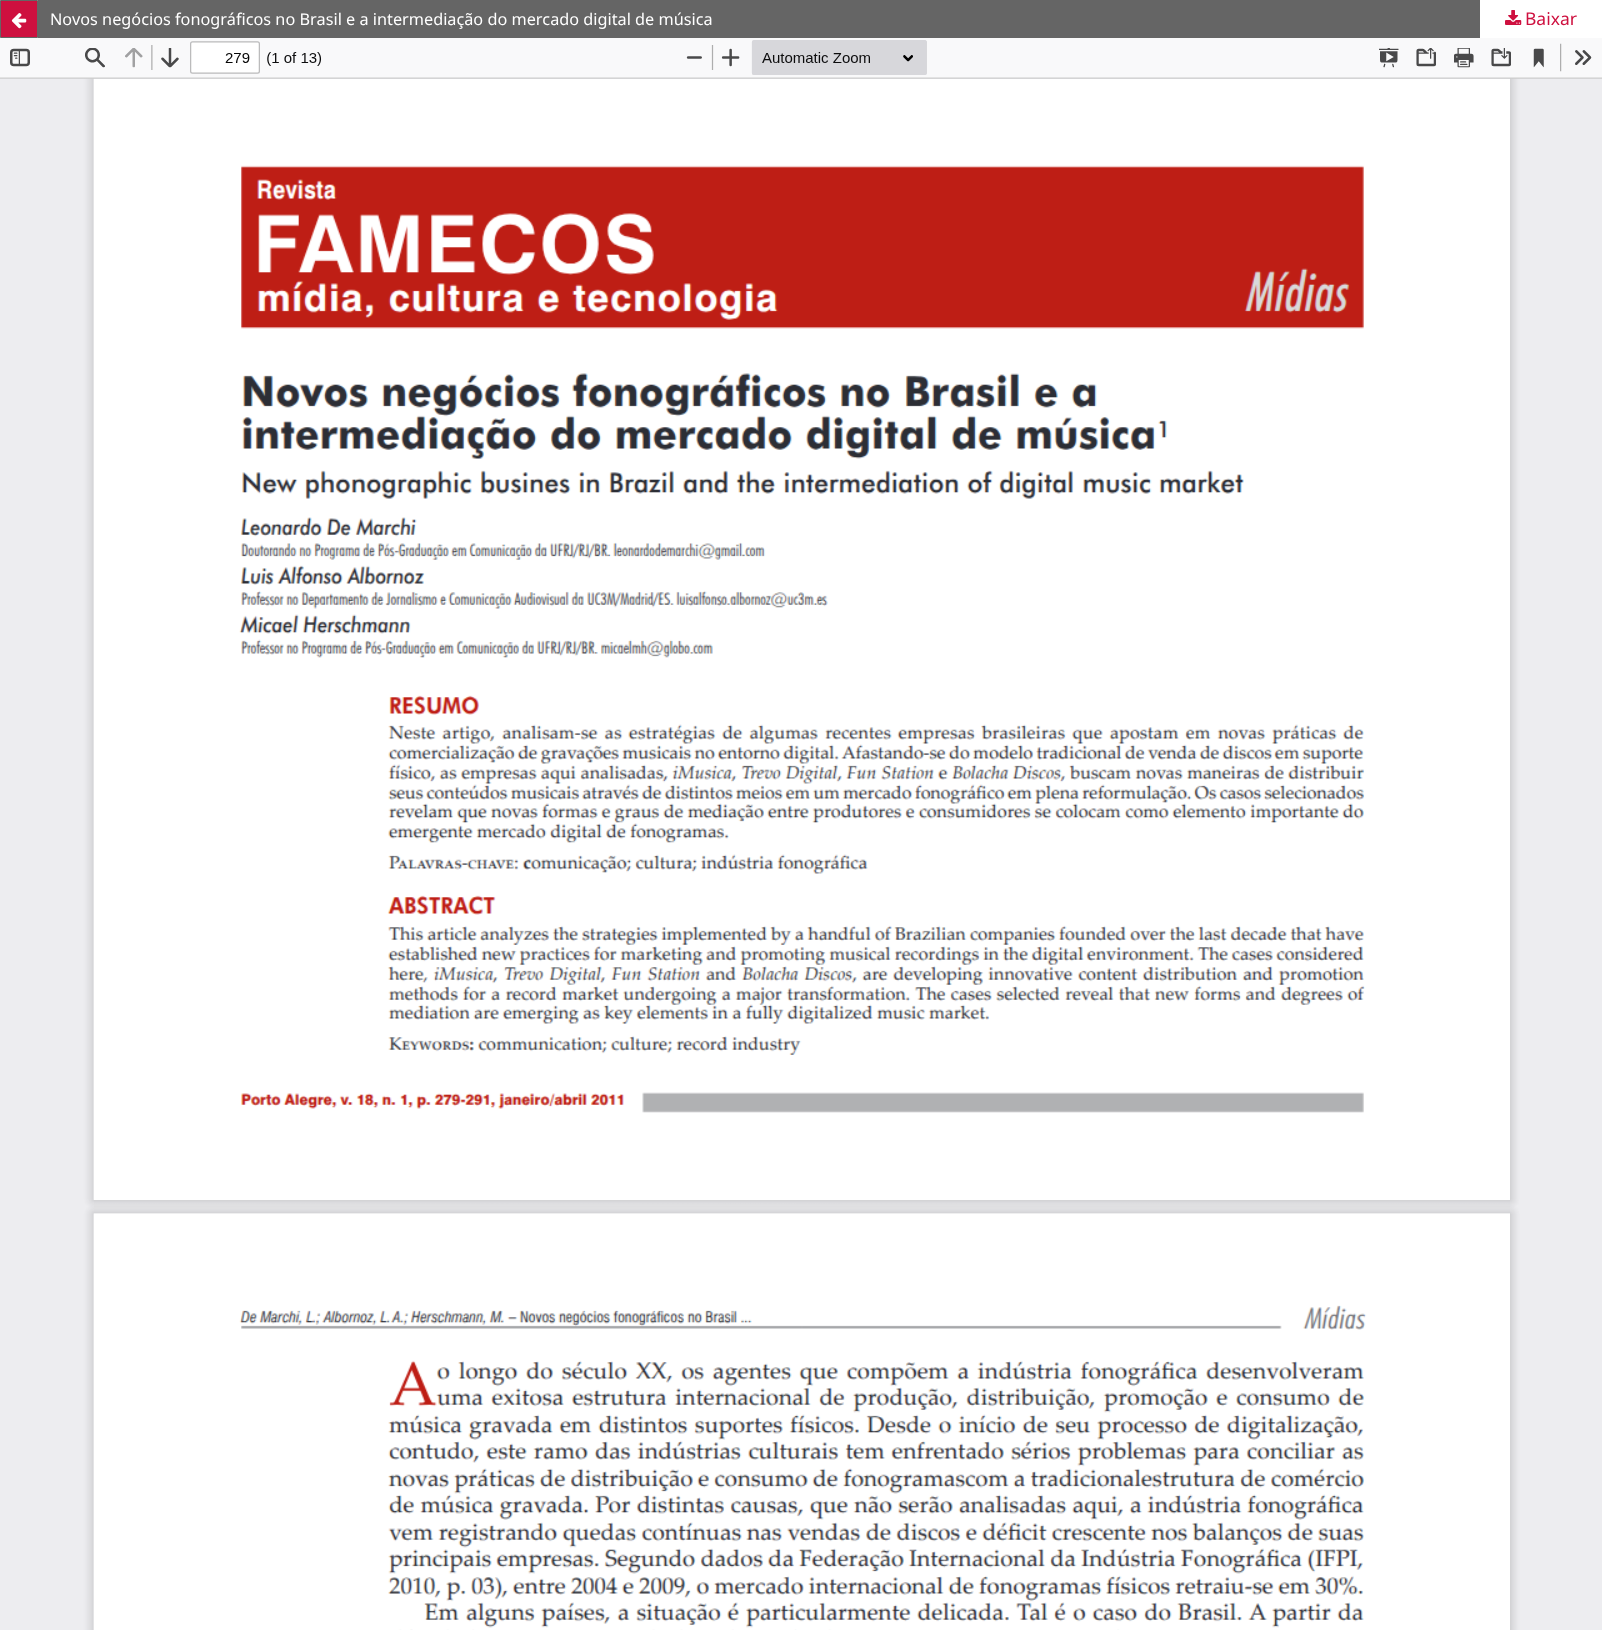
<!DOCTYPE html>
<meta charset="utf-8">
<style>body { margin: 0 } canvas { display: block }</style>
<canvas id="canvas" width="1602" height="1630"></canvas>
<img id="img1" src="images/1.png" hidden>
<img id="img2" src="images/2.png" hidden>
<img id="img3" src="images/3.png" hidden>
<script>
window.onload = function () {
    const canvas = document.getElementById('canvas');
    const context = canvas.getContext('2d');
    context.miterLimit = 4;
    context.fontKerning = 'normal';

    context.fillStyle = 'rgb(255, 255, 255)';
    context.fillRect(0, 0, 1602, 1630);
    context.fillStyle = 'rgb(101, 101, 101)';
    context.fillRect(38, 0, 1442, 38);
    context.fillStyle = 'rgb(206, 16, 63)';
    context.beginPath();
    context.rect(0.5, 0.5, 37, 37);
    context.fill();
    context.strokeStyle = 'rgb(101, 101, 101)';
    context.stroke();
    context.drawImage(document.getElementById('img1'), 11, 13, 16, 16);
    context.drawImage(document.getElementById('img2'), 1505, 10, 17, 15);
    context.drawImage(document.getElementById('img3'), 0, 38, 1602, 1592);
    context.font = '16.25px Noto Sans';
    context.fillStyle = 'rgb(255, 255, 255)';
    context.fillText('Novos negócios fonográficos no Brasil e a intermediação do mercado digital de música', 50, 25);
    context.font = '17.5px Noto Sans';
    context.fillStyle = 'rgb(206, 16, 63)';
    context.fillText('Baixar', 1525, 25);
};
</script>
